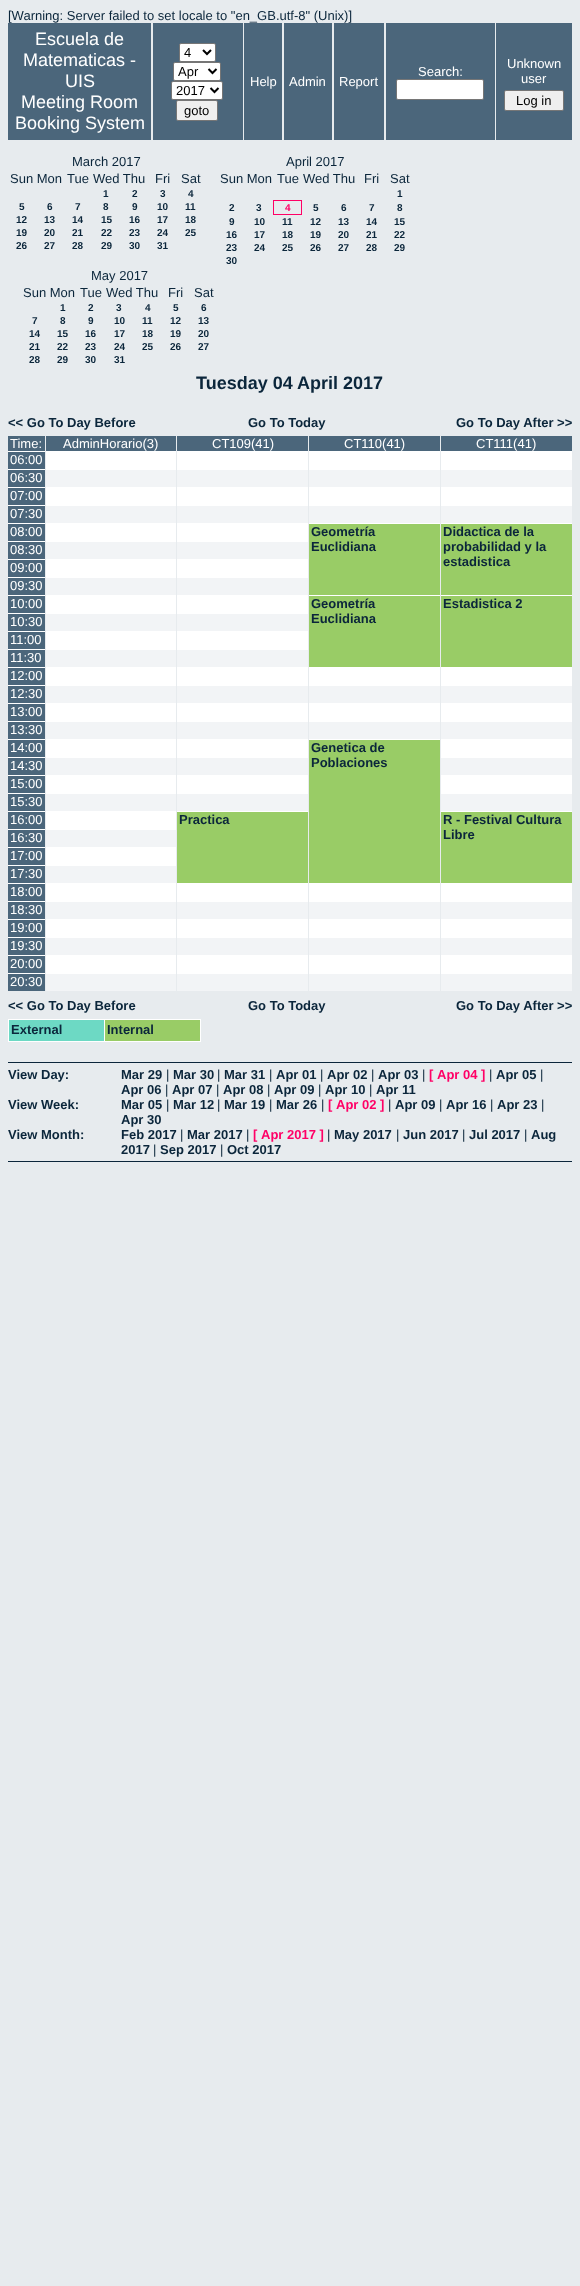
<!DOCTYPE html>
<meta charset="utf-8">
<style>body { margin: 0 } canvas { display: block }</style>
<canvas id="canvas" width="580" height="2286"></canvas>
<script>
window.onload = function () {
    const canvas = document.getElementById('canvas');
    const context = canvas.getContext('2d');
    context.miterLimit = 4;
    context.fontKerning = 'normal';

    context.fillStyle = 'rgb(231, 235, 238)';
    context.fillRect(0, 0, 580, 2286);
    context.fillStyle = 'rgb(75, 102, 123)';
    context.fillRect(8, 23, 143, 117);
    context.fillRect(153, 23, 90, 117);
    context.fillStyle = 'rgb(255, 255, 255)';
    context.beginPath();
    context.roundRect(179.5, 43.5, 36, 18, 1.5);
    context.fill();
    context.strokeStyle = 'rgb(118, 118, 118)';
    context.stroke();
    context.beginPath();
    context.moveTo(203, 50);
    context.lineTo(207, 54);
    context.lineTo(211, 50);
    context.strokeStyle = 'rgb(0, 0, 0)';
    context.lineWidth = 2;
    context.stroke();
    context.beginPath();
    context.roundRect(173.5, 62.5, 47, 18, 1.5);
    context.fill();
    context.strokeStyle = 'rgb(118, 118, 118)';
    context.lineWidth = 1;
    context.stroke();
    context.beginPath();
    context.moveTo(208.5, 69);
    context.lineTo(212.5, 73);
    context.lineTo(216.5, 69);
    context.strokeStyle = 'rgb(0, 0, 0)';
    context.lineWidth = 2;
    context.stroke();
    context.beginPath();
    context.roundRect(171.5, 81.5, 51, 18, 1.5);
    context.fill();
    context.strokeStyle = 'rgb(118, 118, 118)';
    context.lineWidth = 1;
    context.stroke();
    context.beginPath();
    context.moveTo(210.5, 88);
    context.lineTo(214.5, 92);
    context.lineTo(218.5, 88);
    context.strokeStyle = 'rgb(0, 0, 0)';
    context.lineWidth = 2;
    context.stroke();
    context.fillStyle = 'rgb(239, 239, 239)';
    context.beginPath();
    context.roundRect(176.5, 100.5, 41, 20, 1.5);
    context.fill();
    context.strokeStyle = 'rgb(118, 118, 118)';
    context.lineWidth = 1;
    context.stroke();
    context.fillStyle = 'rgb(75, 102, 123)';
    context.fillRect(386, 23, 109, 117);
    context.fillStyle = 'rgb(255, 255, 255)';
    context.beginPath();
    context.roundRect(396.5, 79.5, 87, 20, 1.5);
    context.fill();
    context.stroke();
    context.fillStyle = 'rgb(75, 102, 123)';
    context.fillRect(496, 23, 76, 117);
    context.fillStyle = 'rgb(239, 239, 239)';
    context.beginPath();
    context.roundRect(504.5, 90.5, 59, 20, 1.5);
    context.fill();
    context.stroke();
    context.fillStyle = 'rgb(75, 102, 123)';
    context.fillRect(244, 23, 38, 117);
    context.fillRect(284, 23, 48, 117);
    context.fillRect(334, 23, 50, 117);
    context.fillStyle = 'rgb(255, 0, 102)';
    context.fillRect(273, 200, 29, 1);
    context.fillRect(301, 200, 1, 15);
    context.fillRect(273, 214, 29, 1);
    context.fillRect(273, 200, 1, 15);
    context.fillStyle = 'rgb(75, 102, 123)';
    context.fillRect(8, 436, 37, 15);
    context.fillRect(46, 436, 130, 15);
    context.fillRect(177, 436, 131, 15);
    context.fillRect(309, 436, 131, 15);
    context.fillRect(441, 436, 131, 15);
    context.fillRect(8, 452, 37, 17);
    context.fillStyle = 'rgb(255, 255, 255)';
    context.fillRect(8, 451, 37, 1);
    context.fillRect(46, 451, 130, 18);
    context.fillRect(177, 451, 131, 18);
    context.fillRect(309, 451, 131, 18);
    context.fillRect(441, 451, 131, 18);
    context.fillStyle = 'rgb(75, 102, 123)';
    context.fillRect(8, 470, 37, 17);
    context.fillStyle = 'rgb(255, 255, 255)';
    context.fillRect(8, 469, 564, 1);
    context.fillStyle = 'rgb(242, 244, 246)';
    context.fillRect(46, 470, 130, 17);
    context.fillStyle = 'rgb(231, 235, 238)';
    context.fillRect(45, 469, 1, 1);
    context.fillStyle = 'rgb(242, 244, 246)';
    context.fillRect(177, 470, 131, 17);
    context.fillStyle = 'rgb(231, 235, 238)';
    context.fillRect(176, 469, 1, 1);
    context.fillStyle = 'rgb(242, 244, 246)';
    context.fillRect(309, 470, 131, 17);
    context.fillStyle = 'rgb(231, 235, 238)';
    context.fillRect(308, 469, 1, 1);
    context.fillStyle = 'rgb(242, 244, 246)';
    context.fillRect(441, 470, 131, 17);
    context.fillStyle = 'rgb(231, 235, 238)';
    context.fillRect(440, 469, 1, 1);
    context.fillStyle = 'rgb(75, 102, 123)';
    context.fillRect(8, 488, 37, 17);
    context.fillStyle = 'rgb(255, 255, 255)';
    context.fillRect(8, 487, 37, 1);
    context.fillRect(46, 487, 130, 18);
    context.fillRect(177, 487, 131, 18);
    context.fillRect(309, 487, 131, 18);
    context.fillRect(441, 487, 131, 18);
    context.fillStyle = 'rgb(75, 102, 123)';
    context.fillRect(8, 506, 37, 17);
    context.fillStyle = 'rgb(255, 255, 255)';
    context.fillRect(8, 505, 564, 1);
    context.fillStyle = 'rgb(242, 244, 246)';
    context.fillRect(46, 506, 130, 17);
    context.fillStyle = 'rgb(231, 235, 238)';
    context.fillRect(45, 505, 1, 1);
    context.fillStyle = 'rgb(242, 244, 246)';
    context.fillRect(177, 506, 131, 17);
    context.fillStyle = 'rgb(231, 235, 238)';
    context.fillRect(176, 505, 1, 1);
    context.fillStyle = 'rgb(242, 244, 246)';
    context.fillRect(309, 506, 131, 17);
    context.fillStyle = 'rgb(231, 235, 238)';
    context.fillRect(308, 505, 1, 1);
    context.fillStyle = 'rgb(242, 244, 246)';
    context.fillRect(441, 506, 131, 17);
    context.fillStyle = 'rgb(231, 235, 238)';
    context.fillRect(440, 505, 1, 1);
    context.fillStyle = 'rgb(75, 102, 123)';
    context.fillRect(8, 524, 37, 17);
    context.fillStyle = 'rgb(255, 255, 255)';
    context.fillRect(8, 523, 37, 1);
    context.fillRect(46, 523, 130, 18);
    context.fillRect(177, 523, 131, 18);
    context.fillStyle = 'rgb(153, 204, 102)';
    context.fillRect(309, 524, 131, 71);
    context.fillStyle = 'rgb(255, 255, 255)';
    context.fillRect(308, 523, 264, 1);
    context.fillStyle = 'rgb(231, 235, 238)';
    context.fillRect(308, 523, 1, 1);
    context.fillStyle = 'rgb(153, 204, 102)';
    context.fillRect(441, 524, 131, 71);
    context.fillStyle = 'rgb(231, 235, 238)';
    context.fillRect(440, 523, 1, 1);
    context.fillStyle = 'rgb(75, 102, 123)';
    context.fillRect(8, 542, 37, 17);
    context.fillStyle = 'rgb(255, 255, 255)';
    context.fillRect(8, 541, 300, 1);
    context.fillStyle = 'rgb(242, 244, 246)';
    context.fillRect(46, 542, 130, 17);
    context.fillStyle = 'rgb(231, 235, 238)';
    context.fillRect(45, 541, 1, 1);
    context.fillStyle = 'rgb(242, 244, 246)';
    context.fillRect(177, 542, 131, 17);
    context.fillStyle = 'rgb(231, 235, 238)';
    context.fillRect(176, 541, 1, 1);
    context.fillStyle = 'rgb(75, 102, 123)';
    context.fillRect(8, 560, 37, 17);
    context.fillStyle = 'rgb(255, 255, 255)';
    context.fillRect(8, 559, 37, 1);
    context.fillRect(46, 559, 130, 18);
    context.fillRect(177, 559, 131, 18);
    context.fillStyle = 'rgb(75, 102, 123)';
    context.fillRect(8, 578, 37, 17);
    context.fillStyle = 'rgb(255, 255, 255)';
    context.fillRect(8, 577, 300, 1);
    context.fillStyle = 'rgb(242, 244, 246)';
    context.fillRect(46, 578, 130, 17);
    context.fillStyle = 'rgb(231, 235, 238)';
    context.fillRect(45, 577, 1, 1);
    context.fillStyle = 'rgb(242, 244, 246)';
    context.fillRect(177, 578, 131, 17);
    context.fillStyle = 'rgb(231, 235, 238)';
    context.fillRect(176, 577, 1, 1);
    context.fillStyle = 'rgb(75, 102, 123)';
    context.fillRect(8, 596, 37, 17);
    context.fillStyle = 'rgb(255, 255, 255)';
    context.fillRect(8, 595, 37, 1);
    context.fillRect(46, 595, 130, 18);
    context.fillRect(177, 595, 131, 18);
    context.fillStyle = 'rgb(153, 204, 102)';
    context.fillRect(309, 596, 131, 71);
    context.fillStyle = 'rgb(255, 255, 255)';
    context.fillRect(308, 595, 264, 1);
    context.fillStyle = 'rgb(231, 235, 238)';
    context.fillRect(308, 595, 1, 1);
    context.fillStyle = 'rgb(153, 204, 102)';
    context.fillRect(441, 596, 131, 71);
    context.fillStyle = 'rgb(231, 235, 238)';
    context.fillRect(440, 595, 1, 1);
    context.fillStyle = 'rgb(75, 102, 123)';
    context.fillRect(8, 614, 37, 17);
    context.fillStyle = 'rgb(255, 255, 255)';
    context.fillRect(8, 613, 300, 1);
    context.fillStyle = 'rgb(242, 244, 246)';
    context.fillRect(46, 614, 130, 17);
    context.fillStyle = 'rgb(231, 235, 238)';
    context.fillRect(45, 613, 1, 1);
    context.fillStyle = 'rgb(242, 244, 246)';
    context.fillRect(177, 614, 131, 17);
    context.fillStyle = 'rgb(231, 235, 238)';
    context.fillRect(176, 613, 1, 1);
    context.fillStyle = 'rgb(75, 102, 123)';
    context.fillRect(8, 632, 37, 17);
    context.fillStyle = 'rgb(255, 255, 255)';
    context.fillRect(8, 631, 37, 1);
    context.fillRect(46, 631, 130, 18);
    context.fillRect(177, 631, 131, 18);
    context.fillStyle = 'rgb(75, 102, 123)';
    context.fillRect(8, 650, 37, 17);
    context.fillStyle = 'rgb(255, 255, 255)';
    context.fillRect(8, 649, 300, 1);
    context.fillStyle = 'rgb(242, 244, 246)';
    context.fillRect(46, 650, 130, 17);
    context.fillStyle = 'rgb(231, 235, 238)';
    context.fillRect(45, 649, 1, 1);
    context.fillStyle = 'rgb(242, 244, 246)';
    context.fillRect(177, 650, 131, 17);
    context.fillStyle = 'rgb(231, 235, 238)';
    context.fillRect(176, 649, 1, 1);
    context.fillStyle = 'rgb(75, 102, 123)';
    context.fillRect(8, 668, 37, 17);
    context.fillStyle = 'rgb(255, 255, 255)';
    context.fillRect(8, 667, 37, 1);
    context.fillRect(46, 667, 130, 18);
    context.fillRect(177, 667, 131, 18);
    context.fillRect(309, 667, 131, 18);
    context.fillRect(441, 667, 131, 18);
    context.fillStyle = 'rgb(75, 102, 123)';
    context.fillRect(8, 686, 37, 17);
    context.fillStyle = 'rgb(255, 255, 255)';
    context.fillRect(8, 685, 564, 1);
    context.fillStyle = 'rgb(242, 244, 246)';
    context.fillRect(46, 686, 130, 17);
    context.fillStyle = 'rgb(231, 235, 238)';
    context.fillRect(45, 685, 1, 1);
    context.fillStyle = 'rgb(242, 244, 246)';
    context.fillRect(177, 686, 131, 17);
    context.fillStyle = 'rgb(231, 235, 238)';
    context.fillRect(176, 685, 1, 1);
    context.fillStyle = 'rgb(242, 244, 246)';
    context.fillRect(309, 686, 131, 17);
    context.fillStyle = 'rgb(231, 235, 238)';
    context.fillRect(308, 685, 1, 1);
    context.fillStyle = 'rgb(242, 244, 246)';
    context.fillRect(441, 686, 131, 17);
    context.fillStyle = 'rgb(231, 235, 238)';
    context.fillRect(440, 685, 1, 1);
    context.fillStyle = 'rgb(75, 102, 123)';
    context.fillRect(8, 704, 37, 17);
    context.fillStyle = 'rgb(255, 255, 255)';
    context.fillRect(8, 703, 37, 1);
    context.fillRect(46, 703, 130, 18);
    context.fillRect(177, 703, 131, 18);
    context.fillRect(309, 703, 131, 18);
    context.fillRect(441, 703, 131, 18);
    context.fillStyle = 'rgb(75, 102, 123)';
    context.fillRect(8, 722, 37, 17);
    context.fillStyle = 'rgb(255, 255, 255)';
    context.fillRect(8, 721, 564, 1);
    context.fillStyle = 'rgb(242, 244, 246)';
    context.fillRect(46, 722, 130, 17);
    context.fillStyle = 'rgb(231, 235, 238)';
    context.fillRect(45, 721, 1, 1);
    context.fillStyle = 'rgb(242, 244, 246)';
    context.fillRect(177, 722, 131, 17);
    context.fillStyle = 'rgb(231, 235, 238)';
    context.fillRect(176, 721, 1, 1);
    context.fillStyle = 'rgb(242, 244, 246)';
    context.fillRect(309, 722, 131, 17);
    context.fillStyle = 'rgb(231, 235, 238)';
    context.fillRect(308, 721, 1, 1);
    context.fillStyle = 'rgb(242, 244, 246)';
    context.fillRect(441, 722, 131, 17);
    context.fillStyle = 'rgb(231, 235, 238)';
    context.fillRect(440, 721, 1, 1);
    context.fillStyle = 'rgb(75, 102, 123)';
    context.fillRect(8, 740, 37, 17);
    context.fillStyle = 'rgb(255, 255, 255)';
    context.fillRect(8, 739, 37, 1);
    context.fillRect(46, 739, 130, 18);
    context.fillRect(177, 739, 131, 18);
    context.fillStyle = 'rgb(153, 204, 102)';
    context.fillRect(309, 740, 131, 143);
    context.fillStyle = 'rgb(255, 255, 255)';
    context.fillRect(308, 739, 132, 1);
    context.fillStyle = 'rgb(231, 235, 238)';
    context.fillRect(308, 739, 1, 1);
    context.fillStyle = 'rgb(255, 255, 255)';
    context.fillRect(441, 739, 131, 18);
    context.fillStyle = 'rgb(75, 102, 123)';
    context.fillRect(8, 758, 37, 17);
    context.fillStyle = 'rgb(255, 255, 255)';
    context.fillRect(8, 757, 300, 1);
    context.fillStyle = 'rgb(242, 244, 246)';
    context.fillRect(46, 758, 130, 17);
    context.fillStyle = 'rgb(231, 235, 238)';
    context.fillRect(45, 757, 1, 1);
    context.fillStyle = 'rgb(242, 244, 246)';
    context.fillRect(177, 758, 131, 17);
    context.fillStyle = 'rgb(231, 235, 238)';
    context.fillRect(176, 757, 1, 1);
    context.fillStyle = 'rgb(242, 244, 246)';
    context.fillRect(441, 758, 131, 17);
    context.fillStyle = 'rgb(255, 255, 255)';
    context.fillRect(440, 757, 132, 1);
    context.fillStyle = 'rgb(231, 235, 238)';
    context.fillRect(440, 757, 1, 1);
    context.fillStyle = 'rgb(75, 102, 123)';
    context.fillRect(8, 776, 37, 17);
    context.fillStyle = 'rgb(255, 255, 255)';
    context.fillRect(8, 775, 37, 1);
    context.fillRect(46, 775, 130, 18);
    context.fillRect(177, 775, 131, 18);
    context.fillRect(441, 775, 131, 18);
    context.fillStyle = 'rgb(75, 102, 123)';
    context.fillRect(8, 794, 37, 17);
    context.fillStyle = 'rgb(255, 255, 255)';
    context.fillRect(8, 793, 300, 1);
    context.fillStyle = 'rgb(242, 244, 246)';
    context.fillRect(46, 794, 130, 17);
    context.fillStyle = 'rgb(231, 235, 238)';
    context.fillRect(45, 793, 1, 1);
    context.fillStyle = 'rgb(242, 244, 246)';
    context.fillRect(177, 794, 131, 17);
    context.fillStyle = 'rgb(231, 235, 238)';
    context.fillRect(176, 793, 1, 1);
    context.fillStyle = 'rgb(242, 244, 246)';
    context.fillRect(441, 794, 131, 17);
    context.fillStyle = 'rgb(255, 255, 255)';
    context.fillRect(440, 793, 132, 1);
    context.fillStyle = 'rgb(231, 235, 238)';
    context.fillRect(440, 793, 1, 1);
    context.fillStyle = 'rgb(75, 102, 123)';
    context.fillRect(8, 812, 37, 17);
    context.fillStyle = 'rgb(255, 255, 255)';
    context.fillRect(8, 811, 37, 1);
    context.fillRect(46, 811, 130, 18);
    context.fillStyle = 'rgb(153, 204, 102)';
    context.fillRect(177, 812, 131, 71);
    context.fillStyle = 'rgb(255, 255, 255)';
    context.fillRect(176, 811, 132, 1);
    context.fillStyle = 'rgb(231, 235, 238)';
    context.fillRect(176, 811, 1, 1);
    context.fillStyle = 'rgb(153, 204, 102)';
    context.fillRect(441, 812, 131, 71);
    context.fillStyle = 'rgb(255, 255, 255)';
    context.fillRect(440, 811, 132, 1);
    context.fillStyle = 'rgb(231, 235, 238)';
    context.fillRect(440, 811, 1, 1);
    context.fillStyle = 'rgb(75, 102, 123)';
    context.fillRect(8, 830, 37, 17);
    context.fillStyle = 'rgb(255, 255, 255)';
    context.fillRect(8, 829, 168, 1);
    context.fillStyle = 'rgb(242, 244, 246)';
    context.fillRect(46, 830, 130, 17);
    context.fillStyle = 'rgb(231, 235, 238)';
    context.fillRect(45, 829, 1, 1);
    context.fillStyle = 'rgb(75, 102, 123)';
    context.fillRect(8, 848, 37, 17);
    context.fillStyle = 'rgb(255, 255, 255)';
    context.fillRect(8, 847, 37, 1);
    context.fillRect(46, 847, 130, 18);
    context.fillStyle = 'rgb(75, 102, 123)';
    context.fillRect(8, 866, 37, 17);
    context.fillStyle = 'rgb(255, 255, 255)';
    context.fillRect(8, 865, 168, 1);
    context.fillStyle = 'rgb(242, 244, 246)';
    context.fillRect(46, 866, 130, 17);
    context.fillStyle = 'rgb(231, 235, 238)';
    context.fillRect(45, 865, 1, 1);
    context.fillStyle = 'rgb(75, 102, 123)';
    context.fillRect(8, 884, 37, 17);
    context.fillStyle = 'rgb(255, 255, 255)';
    context.fillRect(8, 883, 37, 1);
    context.fillRect(46, 883, 130, 18);
    context.fillRect(177, 883, 131, 18);
    context.fillRect(309, 883, 131, 18);
    context.fillRect(441, 883, 131, 18);
    context.fillStyle = 'rgb(75, 102, 123)';
    context.fillRect(8, 902, 37, 17);
    context.fillStyle = 'rgb(255, 255, 255)';
    context.fillRect(8, 901, 564, 1);
    context.fillStyle = 'rgb(242, 244, 246)';
    context.fillRect(46, 902, 130, 17);
    context.fillStyle = 'rgb(231, 235, 238)';
    context.fillRect(45, 901, 1, 1);
    context.fillStyle = 'rgb(242, 244, 246)';
    context.fillRect(177, 902, 131, 17);
    context.fillStyle = 'rgb(231, 235, 238)';
    context.fillRect(176, 901, 1, 1);
    context.fillStyle = 'rgb(242, 244, 246)';
    context.fillRect(309, 902, 131, 17);
    context.fillStyle = 'rgb(231, 235, 238)';
    context.fillRect(308, 901, 1, 1);
    context.fillStyle = 'rgb(242, 244, 246)';
    context.fillRect(441, 902, 131, 17);
    context.fillStyle = 'rgb(231, 235, 238)';
    context.fillRect(440, 901, 1, 1);
    context.fillStyle = 'rgb(75, 102, 123)';
    context.fillRect(8, 920, 37, 17);
    context.fillStyle = 'rgb(255, 255, 255)';
    context.fillRect(8, 919, 37, 1);
    context.fillRect(46, 919, 130, 18);
    context.fillRect(177, 919, 131, 18);
    context.fillRect(309, 919, 131, 18);
    context.fillRect(441, 919, 131, 18);
    context.fillStyle = 'rgb(75, 102, 123)';
    context.fillRect(8, 938, 37, 17);
    context.fillStyle = 'rgb(255, 255, 255)';
    context.fillRect(8, 937, 564, 1);
    context.fillStyle = 'rgb(242, 244, 246)';
    context.fillRect(46, 938, 130, 17);
    context.fillStyle = 'rgb(231, 235, 238)';
    context.fillRect(45, 937, 1, 1);
    context.fillStyle = 'rgb(242, 244, 246)';
    context.fillRect(177, 938, 131, 17);
    context.fillStyle = 'rgb(231, 235, 238)';
    context.fillRect(176, 937, 1, 1);
    context.fillStyle = 'rgb(242, 244, 246)';
    context.fillRect(309, 938, 131, 17);
    context.fillStyle = 'rgb(231, 235, 238)';
    context.fillRect(308, 937, 1, 1);
    context.fillStyle = 'rgb(242, 244, 246)';
    context.fillRect(441, 938, 131, 17);
    context.fillStyle = 'rgb(231, 235, 238)';
    context.fillRect(440, 937, 1, 1);
    context.fillStyle = 'rgb(75, 102, 123)';
    context.fillRect(8, 956, 37, 17);
    context.fillStyle = 'rgb(255, 255, 255)';
    context.fillRect(8, 955, 37, 1);
    context.fillRect(46, 955, 130, 18);
    context.fillRect(177, 955, 131, 18);
    context.fillRect(309, 955, 131, 18);
    context.fillRect(441, 955, 131, 18);
    context.fillStyle = 'rgb(75, 102, 123)';
    context.fillRect(8, 974, 37, 17);
    context.fillStyle = 'rgb(255, 255, 255)';
    context.fillRect(8, 973, 564, 1);
    context.fillStyle = 'rgb(242, 244, 246)';
    context.fillRect(46, 974, 130, 17);
    context.fillStyle = 'rgb(231, 235, 238)';
    context.fillRect(45, 973, 1, 1);
    context.fillStyle = 'rgb(242, 244, 246)';
    context.fillRect(177, 974, 131, 17);
    context.fillStyle = 'rgb(231, 235, 238)';
    context.fillRect(176, 973, 1, 1);
    context.fillStyle = 'rgb(242, 244, 246)';
    context.fillRect(309, 974, 131, 17);
    context.fillStyle = 'rgb(231, 235, 238)';
    context.fillRect(308, 973, 1, 1);
    context.fillStyle = 'rgb(242, 244, 246)';
    context.fillRect(441, 974, 131, 17);
    context.fillStyle = 'rgb(231, 235, 238)';
    context.fillRect(440, 973, 1, 1);
    context.fillStyle = 'rgb(109, 217, 196)';
    context.fillRect(9, 1020, 95, 21);
    context.fillStyle = 'rgb(255, 255, 255)';
    context.fillRect(104, 1019, 97, 1);
    context.fillRect(200, 1019, 1, 23);
    context.fillRect(104, 1041, 97, 1);
    context.fillRect(104, 1019, 1, 23);
    context.fillRect(8, 1019, 97, 1);
    context.fillRect(8, 1041, 97, 1);
    context.fillRect(8, 1019, 1, 23);
    context.fillStyle = 'rgb(153, 204, 102)';
    context.fillRect(105, 1020, 95, 21);
    context.fillStyle = 'rgb(11, 38, 59)';
    context.fillRect(8, 1062, 564, 1);
    context.fillRect(8, 1161, 564, 1);
    context.font = '13px Liberation Sans';
    context.fillText('[Warning: Server failed to set locale to "en_GB.utf-8" (Unix)]', 8, 20);
    context.font = '18px Liberation Sans';
    context.fillStyle = 'rgb(255, 255, 255)';
    context.fillText('Escuela de', 35, 45);
    context.fillText('Matematicas -', 23, 66);
    context.fillText('UIS', 65, 87);
    context.fillText('Meeting Room', 21, 108);
    context.fillText('Booking System', 15, 129);
    context.font = '13px Liberation Sans';
    context.fillStyle = 'rgb(0, 0, 0)';
    context.fillText('4', 184, 57);
    context.fillText('Apr', 178, 76);
    context.fillText('2017', 176, 95);
    context.fillText('goto', 184, 115);
    context.fillStyle = 'rgb(255, 255, 255)';
    context.fillText('Search:', 418, 76);
    context.fillText('Unknown', 507, 68);
    context.fillText('user', 521, 83);
    context.fillStyle = 'rgb(0, 0, 0)';
    context.fillText('Log in', 516, 105);
    context.fillStyle = 'rgb(255, 255, 255)';
    context.fillText('Help', 250, 86);
    context.fillText('Admin', 289, 86);
    context.fillText('Report', 339, 86);
    context.fillStyle = 'rgb(11, 38, 59)';
    context.fillText('March 2017', 72, 166);
    context.fillText('Sun Mon', 10, 183);
    context.fillText('Tue', 67, 183);
    context.fillText('Wed Thu', 93, 183);
    context.fillText('Fri', 155, 183);
    context.fillText('Sat', 181, 183);
    context.font = 'bold 10px Liberation Sans';
    context.fillText('1', 103, 197);
    context.fillText('2', 132, 197);
    context.fillText('3', 160, 197);
    context.fillText('4', 188, 197);
    context.fillText('5', 19, 210);
    context.fillText('6', 47, 210);
    context.fillText('7', 75, 210);
    context.fillText('8', 103, 210);
    context.fillText('9', 132, 210);
    context.fillText('10', 157, 210);
    context.fillText('11', 185, 210);
    context.fillText('12', 16, 223);
    context.fillText('13', 44, 223);
    context.fillText('14', 72, 223);
    context.fillText('15', 101, 223);
    context.fillText('16', 129, 223);
    context.fillText('17', 157, 223);
    context.fillText('18', 185, 223);
    context.fillText('19', 16, 236);
    context.fillText('20', 44, 236);
    context.fillText('21', 72, 236);
    context.fillText('22', 101, 236);
    context.fillText('23', 129, 236);
    context.fillText('24', 157, 236);
    context.fillText('25', 185, 236);
    context.fillText('26', 16, 249);
    context.fillText('27', 44, 249);
    context.fillText('28', 72, 249);
    context.fillText('29', 101, 249);
    context.fillText('30', 129, 249);
    context.fillText('31', 157, 249);
    context.font = '13px Liberation Sans';
    context.fillText('April 2017', 286, 166);
    context.fillText('Sun Mon', 220, 183);
    context.fillText('Tue', 277, 183);
    context.fillText('Wed Thu', 303, 183);
    context.fillText('Fri', 364, 183);
    context.fillText('Sat', 390, 183);
    context.font = 'bold 10px Liberation Sans';
    context.fillText('1', 397, 197);
    context.fillText('2', 229, 211);
    context.fillText('3', 256, 211);
    context.fillStyle = 'rgb(255, 0, 102)';
    context.fillText('4', 285, 211);
    context.fillStyle = 'rgb(11, 38, 59)';
    context.fillText('5', 313, 211);
    context.fillText('6', 341, 211);
    context.fillText('7', 369, 211);
    context.fillText('8', 397, 211);
    context.fillText('9', 229, 225);
    context.fillText('10', 254, 225);
    context.fillText('11', 282, 225);
    context.fillText('12', 310, 225);
    context.fillText('13', 338, 225);
    context.fillText('14', 366, 225);
    context.fillText('15', 394, 225);
    context.fillText('16', 226, 238);
    context.fillText('17', 254, 238);
    context.fillText('18', 282, 238);
    context.fillText('19', 310, 238);
    context.fillText('20', 338, 238);
    context.fillText('21', 366, 238);
    context.fillText('22', 394, 238);
    context.fillText('23', 226, 251);
    context.fillText('24', 254, 251);
    context.fillText('25', 282, 251);
    context.fillText('26', 310, 251);
    context.fillText('27', 338, 251);
    context.fillText('28', 366, 251);
    context.fillText('29', 394, 251);
    context.fillText('30', 226, 264);
    context.font = '13px Liberation Sans';
    context.fillText('May 2017', 91, 280);
    context.fillText('Sun Mon', 23, 297);
    context.fillText('Tue', 80, 297);
    context.fillText('Wed Thu', 106, 297);
    context.fillText('Fri', 168, 297);
    context.fillText('Sat', 194, 297);
    context.font = 'bold 10px Liberation Sans';
    context.fillText('1', 60, 311);
    context.fillText('2', 88, 311);
    context.fillText('3', 116, 311);
    context.fillText('4', 145, 311);
    context.fillText('5', 173, 311);
    context.fillText('6', 201, 311);
    context.fillText('7', 32, 324);
    context.fillText('8', 60, 324);
    context.fillText('9', 88, 324);
    context.fillText('10', 114, 324);
    context.fillText('11', 142, 324);
    context.fillText('12', 170, 324);
    context.fillText('13', 198, 324);
    context.fillText('14', 29, 337);
    context.fillText('15', 57, 337);
    context.fillText('16', 85, 337);
    context.fillText('17', 114, 337);
    context.fillText('18', 142, 337);
    context.fillText('19', 170, 337);
    context.fillText('20', 198, 337);
    context.fillText('21', 29, 350);
    context.fillText('22', 57, 350);
    context.fillText('23', 85, 350);
    context.fillText('24', 114, 350);
    context.fillText('25', 142, 350);
    context.fillText('26', 170, 350);
    context.fillText('27', 198, 350);
    context.fillText('28', 29, 363);
    context.fillText('29', 57, 363);
    context.fillText('30', 85, 363);
    context.fillText('31', 114, 363);
    context.font = 'bold 18px Liberation Sans';
    context.fillText('Tuesday 04 April 2017', 196, 389);
    context.font = 'bold 13px Liberation Sans';
    context.fillText('<< Go To Day Before', 8, 427);
    context.fillText('Go To Today', 248, 427);
    context.fillText('Go To Day After >>', 456, 427);
    context.font = '13px Liberation Sans';
    context.fillStyle = 'rgb(255, 255, 255)';
    context.fillText('Time:', 10, 448);
    context.fillText('AdminHorario(3)', 63, 448);
    context.fillText('CT109(41)', 212, 448);
    context.fillText('CT110(41)', 344, 448);
    context.fillText('CT111(41)', 476, 448);
    context.fillText('06:00', 10, 464);
    context.fillText('06:30', 10, 482);
    context.fillText('07:00', 10, 500);
    context.fillText('07:30', 10, 518);
    context.fillText('08:00', 10, 536);
    context.font = 'bold 13px Liberation Sans';
    context.fillStyle = 'rgb(11, 38, 59)';
    context.fillText('Geometría', 311, 536);
    context.fillText('Euclidiana', 311, 551);
    context.fillText('Didactica de la', 443, 536);
    context.fillText('probabilidad y la', 443, 551);
    context.fillText('estadistica', 443, 566);
    context.font = '13px Liberation Sans';
    context.fillStyle = 'rgb(255, 255, 255)';
    context.fillText('08:30', 10, 554);
    context.fillText('09:00', 10, 572);
    context.fillText('09:30', 10, 590);
    context.fillText('10:00', 10, 608);
    context.font = 'bold 13px Liberation Sans';
    context.fillStyle = 'rgb(11, 38, 59)';
    context.fillText('Geometría', 311, 608);
    context.fillText('Euclidiana', 311, 623);
    context.fillText('Estadistica 2', 443, 608);
    context.font = '13px Liberation Sans';
    context.fillStyle = 'rgb(255, 255, 255)';
    context.fillText('10:30', 10, 626);
    context.fillText('11:00', 10, 644);
    context.fillText('11:30', 10, 662);
    context.fillText('12:00', 10, 680);
    context.fillText('12:30', 10, 698);
    context.fillText('13:00', 10, 716);
    context.fillText('13:30', 10, 734);
    context.fillText('14:00', 10, 752);
    context.font = 'bold 13px Liberation Sans';
    context.fillStyle = 'rgb(11, 38, 59)';
    context.fillText('Genetica de', 311, 752);
    context.fillText('Poblaciones', 311, 767);
    context.font = '13px Liberation Sans';
    context.fillStyle = 'rgb(255, 255, 255)';
    context.fillText('14:30', 10, 770);
    context.fillText('15:00', 10, 788);
    context.fillText('15:30', 10, 806);
    context.fillText('16:00', 10, 824);
    context.font = 'bold 13px Liberation Sans';
    context.fillStyle = 'rgb(11, 38, 59)';
    context.fillText('Practica', 179, 824);
    context.fillText('R - Festival Cultura', 443, 824);
    context.fillText('Libre', 443, 839);
    context.font = '13px Liberation Sans';
    context.fillStyle = 'rgb(255, 255, 255)';
    context.fillText('16:30', 10, 842);
    context.fillText('17:00', 10, 860);
    context.fillText('17:30', 10, 878);
    context.fillText('18:00', 10, 896);
    context.fillText('18:30', 10, 914);
    context.fillText('19:00', 10, 932);
    context.fillText('19:30', 10, 950);
    context.fillText('20:00', 10, 968);
    context.fillText('20:30', 10, 986);
    context.font = 'bold 13px Liberation Sans';
    context.fillStyle = 'rgb(11, 38, 59)';
    context.fillText('<< Go To Day Before', 8, 1010);
    context.fillText('Go To Today', 248, 1010);
    context.fillText('Go To Day After >>', 456, 1010);
    context.fillText('External', 11, 1034);
    context.fillText('Internal', 107, 1034);
    context.fillText('View Day:', 8, 1079);
    context.fillText('Mar 29', 121, 1079);
    context.font = '13px Liberation Sans';
    context.fillText('|', 166, 1079);
    context.font = 'bold 13px Liberation Sans';
    context.fillText('Mar 30', 173, 1079);
    context.font = '13px Liberation Sans';
    context.fillText('|', 217, 1079);
    context.font = 'bold 13px Liberation Sans';
    context.fillText('Mar 31', 224, 1079);
    context.font = '13px Liberation Sans';
    context.fillText('|', 269, 1079);
    context.font = 'bold 13px Liberation Sans';
    context.fillText('Apr 01', 276, 1079);
    context.font = '13px Liberation Sans';
    context.fillText('|', 320, 1079);
    context.font = 'bold 13px Liberation Sans';
    context.fillText('Apr 02', 327, 1079);
    context.font = '13px Liberation Sans';
    context.fillText('|', 371, 1079);
    context.font = 'bold 13px Liberation Sans';
    context.fillText('Apr 03', 378, 1079);
    context.font = '13px Liberation Sans';
    context.fillText('|', 422, 1079);
    context.font = 'bold 13px Liberation Sans';
    context.fillStyle = 'rgb(255, 0, 102)';
    context.fillText('[', 429, 1079);
    context.fillText('Apr 04 ]', 437, 1079);
    context.font = '13px Liberation Sans';
    context.fillStyle = 'rgb(11, 38, 59)';
    context.fillText('|', 489, 1079);
    context.font = 'bold 13px Liberation Sans';
    context.fillText('Apr 05', 496, 1079);
    context.font = '13px Liberation Sans';
    context.fillText('|', 540, 1079);
    context.font = 'bold 13px Liberation Sans';
    context.fillText('Apr 06', 121, 1094);
    context.font = '13px Liberation Sans';
    context.fillText('|', 165, 1094);
    context.font = 'bold 13px Liberation Sans';
    context.fillText('Apr 07', 172, 1094);
    context.font = '13px Liberation Sans';
    context.fillText('|', 216, 1094);
    context.font = 'bold 13px Liberation Sans';
    context.fillText('Apr 08', 223, 1094);
    context.font = '13px Liberation Sans';
    context.fillText('|', 267, 1094);
    context.font = 'bold 13px Liberation Sans';
    context.fillText('Apr 09', 274, 1094);
    context.font = '13px Liberation Sans';
    context.fillText('|', 318, 1094);
    context.font = 'bold 13px Liberation Sans';
    context.fillText('Apr 10', 325, 1094);
    context.font = '13px Liberation Sans';
    context.fillText('|', 369, 1094);
    context.font = 'bold 13px Liberation Sans';
    context.fillText('Apr 11', 376, 1094);
    context.fillText('View Week:', 8, 1109);
    context.fillText('Mar 05', 121, 1109);
    context.font = '13px Liberation Sans';
    context.fillText('|', 166, 1109);
    context.font = 'bold 13px Liberation Sans';
    context.fillText('Mar 12', 173, 1109);
    context.font = '13px Liberation Sans';
    context.fillText('|', 217, 1109);
    context.font = 'bold 13px Liberation Sans';
    context.fillText('Mar 19', 224, 1109);
    context.font = '13px Liberation Sans';
    context.fillText('|', 269, 1109);
    context.font = 'bold 13px Liberation Sans';
    context.fillText('Mar 26', 276, 1109);
    context.font = '13px Liberation Sans';
    context.fillText('|', 321, 1109);
    context.font = 'bold 13px Liberation Sans';
    context.fillStyle = 'rgb(255, 0, 102)';
    context.fillText('[', 328, 1109);
    context.fillText('Apr 02 ]', 336, 1109);
    context.font = '13px Liberation Sans';
    context.fillStyle = 'rgb(11, 38, 59)';
    context.fillText('|', 388, 1109);
    context.font = 'bold 13px Liberation Sans';
    context.fillText('Apr 09', 395, 1109);
    context.font = '13px Liberation Sans';
    context.fillText('|', 439, 1109);
    context.font = 'bold 13px Liberation Sans';
    context.fillText('Apr 16', 446, 1109);
    context.font = '13px Liberation Sans';
    context.fillText('|', 490, 1109);
    context.font = 'bold 13px Liberation Sans';
    context.fillText('Apr 23', 497, 1109);
    context.font = '13px Liberation Sans';
    context.fillText('|', 541, 1109);
    context.font = 'bold 13px Liberation Sans';
    context.fillText('Apr 30', 121, 1124);
    context.fillText('View Month:', 8, 1139);
    context.fillText('Feb 2017', 121, 1139);
    context.font = '13px Liberation Sans';
    context.fillText('|', 180, 1139);
    context.font = 'bold 13px Liberation Sans';
    context.fillText('Mar 2017', 187, 1139);
    context.font = '13px Liberation Sans';
    context.fillText('|', 246, 1139);
    context.font = 'bold 13px Liberation Sans';
    context.fillStyle = 'rgb(255, 0, 102)';
    context.fillText('[', 253, 1139);
    context.fillText('Apr 2017 ]', 261, 1139);
    context.font = '13px Liberation Sans';
    context.fillStyle = 'rgb(11, 38, 59)';
    context.fillText('|', 327, 1139);
    context.font = 'bold 13px Liberation Sans';
    context.fillText('May 2017', 334, 1139);
    context.font = '13px Liberation Sans';
    context.fillText('|', 396, 1139);
    context.font = 'bold 13px Liberation Sans';
    context.fillText('Jun 2017', 403, 1139);
    context.font = '13px Liberation Sans';
    context.fillText('|', 462, 1139);
    context.font = 'bold 13px Liberation Sans';
    context.fillText('Jul 2017', 469, 1139);
    context.font = '13px Liberation Sans';
    context.fillText('|', 524, 1139);
    context.font = 'bold 13px Liberation Sans';
    context.fillText('Aug', 531, 1139);
    context.fillText('2017', 121, 1154);
    context.font = '13px Liberation Sans';
    context.fillText('|', 153, 1154);
    context.font = 'bold 13px Liberation Sans';
    context.fillText('Sep 2017', 160, 1154);
    context.font = '13px Liberation Sans';
    context.fillText('|', 220, 1154);
    context.font = 'bold 13px Liberation Sans';
    context.fillText('Oct 2017', 227, 1154);
};
</script>
